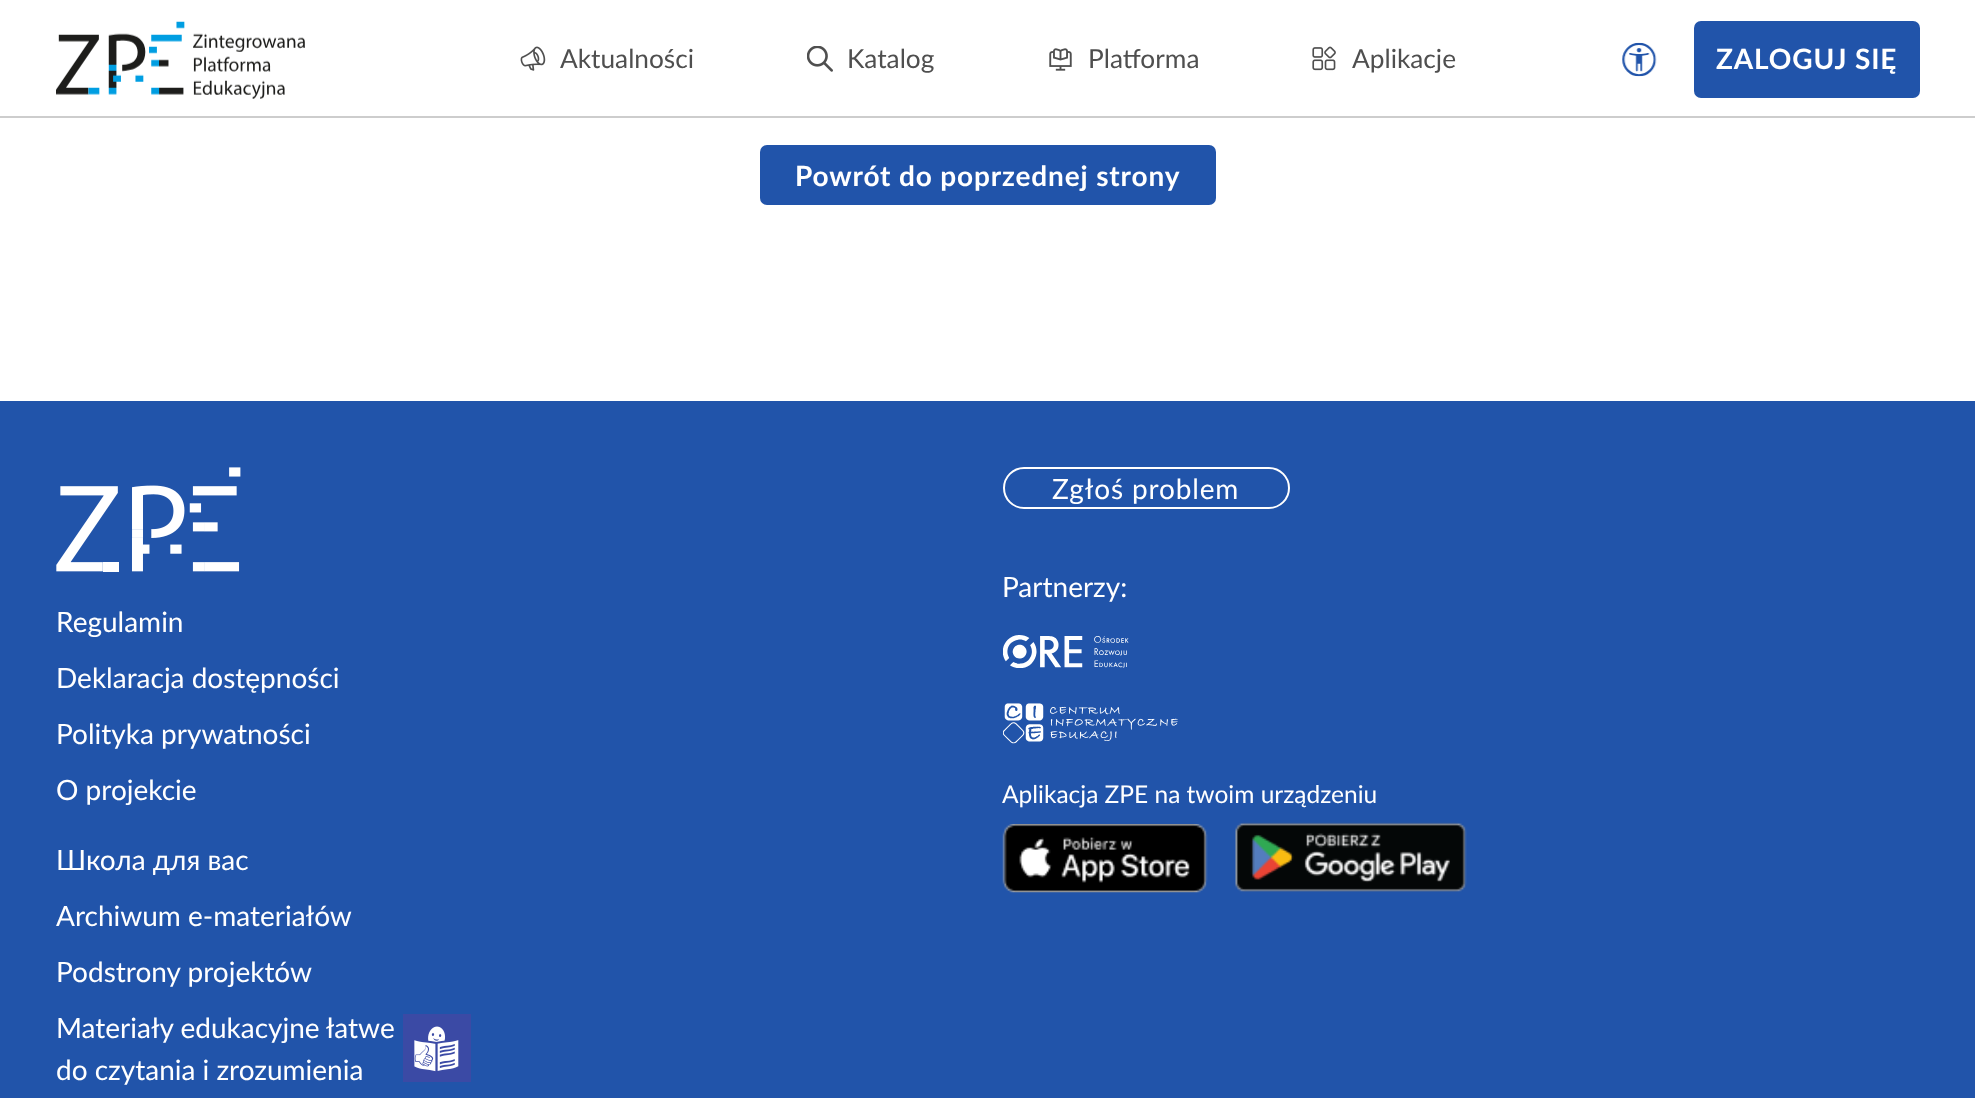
<!DOCTYPE html>
<meta charset="utf-8">
<style>body { margin: 0 } canvas { display: block }</style>
<canvas id="canvas" width="1975" height="1098"></canvas>
<img id="img1" src="images/1.png" hidden>
<img id="img2" src="images/2.png" hidden>
<img id="img3" src="images/3.png" hidden>
<img id="img4" src="images/4.png" hidden>
<img id="img5" src="images/5.png" hidden>
<img id="img6" src="images/6.png" hidden>
<img id="img7" src="images/7.png" hidden>
<img id="img8" src="images/8.png" hidden>
<img id="img9" src="images/9.png" hidden>
<img id="img10" src="images/10.png" hidden>
<img id="img11" src="images/11.png" hidden>
<img id="img12" src="images/12.png" hidden>
<script>
window.onload = function () {
    const canvas = document.getElementById('canvas');
    const context = canvas.getContext('2d');
    context.miterLimit = 4;
    context.fontKerning = 'normal';

    context.fillStyle = 'rgb(255, 255, 255)';
    context.fillRect(0, 0, 1975, 1098);
    context.drawImage(document.getElementById('img1'), 56, 21, 249, 78);
    context.drawImage(document.getElementById('img2'), 520, 46, 26, 25);
    context.drawImage(document.getElementById('img3'), 807, 46, 26, 26);
    context.drawImage(document.getElementById('img4'), 1049, 48, 23, 23);
    context.drawImage(document.getElementById('img5'), 1312, 46, 24, 25);
    context.drawImage(document.getElementById('img6'), 1622, 42, 35, 35);
    context.fillStyle = 'rgb(33, 84, 170)';
    context.beginPath();
    context.roundRect(1694, 21, 226, 77, 7);
    context.fill();
    context.fillStyle = 'rgb(205, 205, 205)';
    context.fillRect(0, 116, 1975, 2);
    context.fillStyle = 'rgb(33, 84, 170)';
    context.beginPath();
    context.roundRect(760, 145, 456, 60, 7);
    context.fill();
    context.fillRect(0, 401, 1975, 697);
    context.drawImage(document.getElementById('img7'), 56, 467, 185, 105);
    context.drawImage(document.getElementById('img8'), 403, 1014, 68, 68);
    context.beginPath();
    context.roundRect(1004, 468, 285, 40, 20);
    context.strokeStyle = 'rgb(255, 255, 255)';
    context.lineWidth = 2;
    context.stroke();
    context.drawImage(document.getElementById('img9'), 1003, 635, 126, 33);
    context.drawImage(document.getElementById('img10'), 1003, 703, 175, 41);
    context.drawImage(document.getElementById('img11'), 1002, 824, 206, 69);
    context.drawImage(document.getElementById('img12'), 1235, 822, 232, 70);
    context.font = '26.25px Lato';
    context.fillStyle = 'rgb(79, 79, 79)';
    context.fillText('Aktualności', 560, 68);
    context.fillText('Katalog', 847, 68);
    context.fillText('Platforma', 1088, 68);
    context.fillText('Aplikacje', 1352, 68);
    context.letterSpacing = '0.85px';
    context.font = 'bold 28px Lato';
    context.fillStyle = 'rgb(255, 255, 255)';
    context.fillText('ZALOGUJ SIĘ', 1716, 69);
    context.fillText('Powrót do poprzednej strony', 795, 186);
    context.letterSpacing = '0px';
    context.font = '28px Lato';
    context.fillText('Regulamin', 56, 632);
    context.fillText('Deklaracja dostępności', 56, 688);
    context.fillText('Polityka prywatności', 56, 744);
    context.fillText('O projekcie', 56, 800);
    context.fillText('Школа для вас', 56, 870);
    context.fillText('Archiwum e-materiałów', 56, 926);
    context.fillText('Podstrony projektów', 56, 982);
    context.fillText('Materiały edukacyjne łatwe', 56, 1038);
    context.fillText('do czytania i zrozumienia', 56, 1080);
    context.letterSpacing = '0.85px';
    context.fillText('Zgłoś problem', 1052, 499);
    context.letterSpacing = '0px';
    context.fillText('Partnerzy:', 1002, 597);
    context.font = '24.5px Lato';
    context.fillText('Aplikacja ZPE na twoim urządzeniu', 1002, 803);
};
</script>
